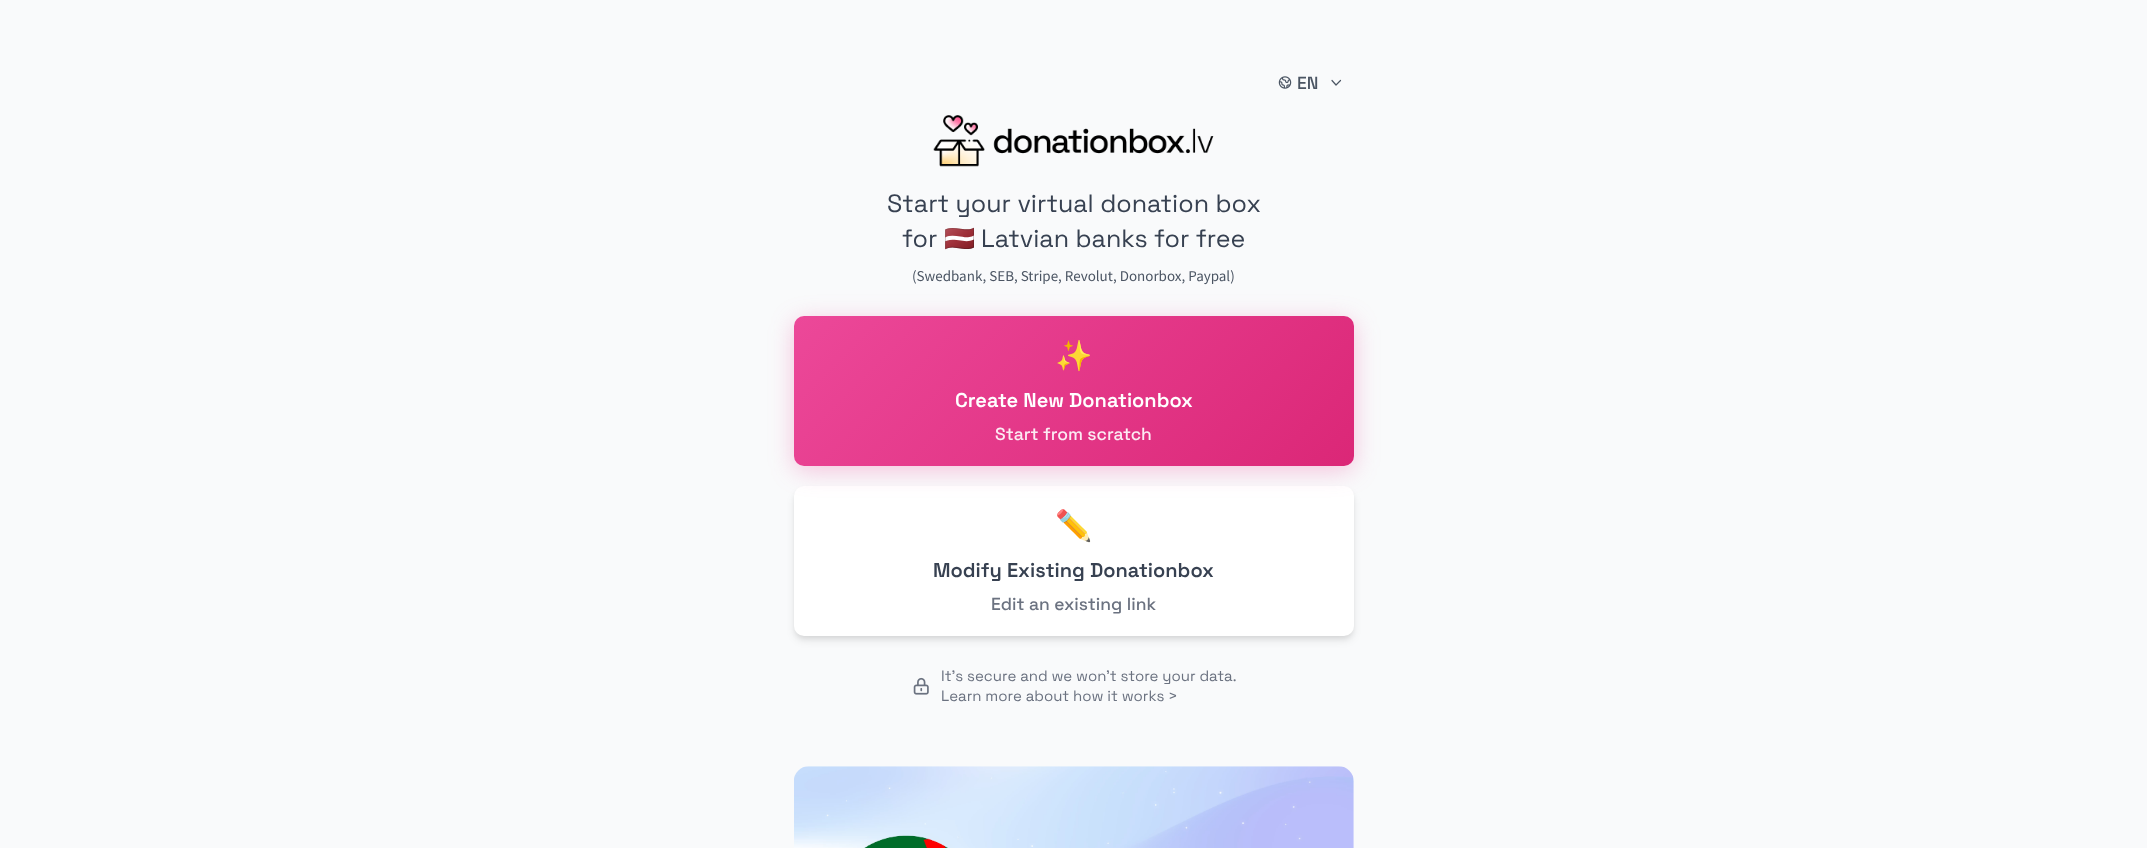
<!DOCTYPE html>
<meta charset="utf-8">
<style>body { margin: 0 } canvas { display: block }</style>
<canvas id="canvas" width="2147" height="848"></canvas>
<img id="img1" src="images/1.png" hidden>
<img id="img2" src="images/2.png" hidden>
<img id="img3" src="images/3.png" hidden>
<img id="img4" src="images/4.png" hidden>
<script>
window.onload = function () {
    const canvas = document.getElementById('canvas');
    const context = canvas.getContext('2d');
    context.miterLimit = 4;
    context.fontKerning = 'normal';
    let gradient;

    context.fillStyle = 'rgb(249, 250, 251)';
    context.fillRect(0, 0, 2147, 848);
    context.drawImage(document.getElementById('img1'), 1278, 76, 14, 13);
    context.beginPath();
    context.moveTo(1340.5, 80.5);
    context.lineTo(1336, 85);
    context.lineTo(1332, 80.5);
    context.strokeStyle = 'rgb(75, 85, 99)';
    context.lineWidth = 1.2;
    context.lineCap = 'round';
    context.lineJoin = 'round';
    context.stroke();
    context.drawImage(document.getElementById('img2'), 933, 115, 281, 52);
    context.fillStyle = 'rgba(0, 0, 0, 0.06)';
    context.filter = 'blur(2.5px)';
    context.beginPath();
    context.roundRect(795, 490, 558, 148, 9);
    context.fill();
    context.filter = 'none';
    context.fillStyle = 'rgba(0, 0, 0, 0.1)';
    context.filter = 'blur(4px)';
    context.beginPath();
    context.roundRect(795, 493, 558, 147, 9);
    context.fill();
    context.filter = 'none';
    context.fillStyle = 'rgb(255, 255, 255)';
    context.beginPath();
    context.roundRect(794, 486, 560, 150, 10);
    context.fill();
    context.fillStyle = 'rgba(236, 72, 153, 0.3)';
    context.filter = 'blur(12.5px)';
    context.beginPath();
    context.roundRect(794, 321, 560, 150, 10);
    context.fill();
    context.filter = 'none';
    gradient = context.createLinearGradient(1204, -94, 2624, 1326);
    gradient.addColorStop(0, 'rgb(236, 72, 153)');
    gradient.addColorStop(0.25, 'rgb(219, 39, 119)');
    gradient.addColorStop(0.5, 'rgb(249, 115, 22)');
    gradient.addColorStop(0.75, 'rgb(234, 88, 12)');
    gradient.addColorStop(1, 'rgb(192, 38, 211)');
    context.fillStyle = gradient;
    context.beginPath();
    context.roundRect(794, 316, 560, 150, 10);
    context.fill();
    context.drawImage(document.getElementById('img3'), 913, 677, 16, 18);
    context.drawImage(document.getElementById('img4'), 794, 766, 560, 82);
    context.font = '500 17.5px Space Grotesk';
    context.fillStyle = 'rgb(75, 85, 99)';
    context.fillText('EN', 1297, 89);
    context.font = '25px Space Grotesk';
    context.fillStyle = 'rgb(55, 65, 81)';
    context.fillText('Start your virtual donation box', 887, 212);
    context.fillText('for', 902, 247);
    context.font = '25px Noto Color Emoji';
    context.fillText('🇱🇻', 944, 247);
    context.font = '25px Space Grotesk';
    context.fillText('Latvian banks for free', 981, 247);
    context.font = '15px Source Sans Pro';
    context.fillStyle = 'rgb(75, 85, 99)';
    context.fillText('(Swedbank, SEB, Stripe, Revolut, Donorbox, Paypal)', 912, 281);
    context.font = '30px Noto Color Emoji';
    context.fillStyle = 'rgb(255, 255, 255)';
    context.fillText('✨', 1055, 366);
    context.font = '600 20px Space Grotesk';
    context.fillText('Create New Donationbox', 955, 407);
    context.font = '500 17.5px Space Grotesk';
    context.fillStyle = 'rgb(252, 235, 243)';
    context.fillText('Start from scratch', 995, 440);
    context.font = '30px Noto Color Emoji';
    context.fillStyle = 'rgb(55, 65, 81)';
    context.fillText('✏️', 1055, 536);
    context.font = '600 20px Space Grotesk';
    context.fillText('Modify Existing Donationbox', 933, 577);
    context.font = '500 17.5px Space Grotesk';
    context.fillStyle = 'rgb(107, 114, 128)';
    context.fillText('Edit an existing link', 991, 610);
    context.font = '15px Space Grotesk';
    context.fillText('It\'s secure and we won\'t store your data.', 941, 681);
    context.fillText('Learn more about how it works >', 941, 701);
};
</script>
